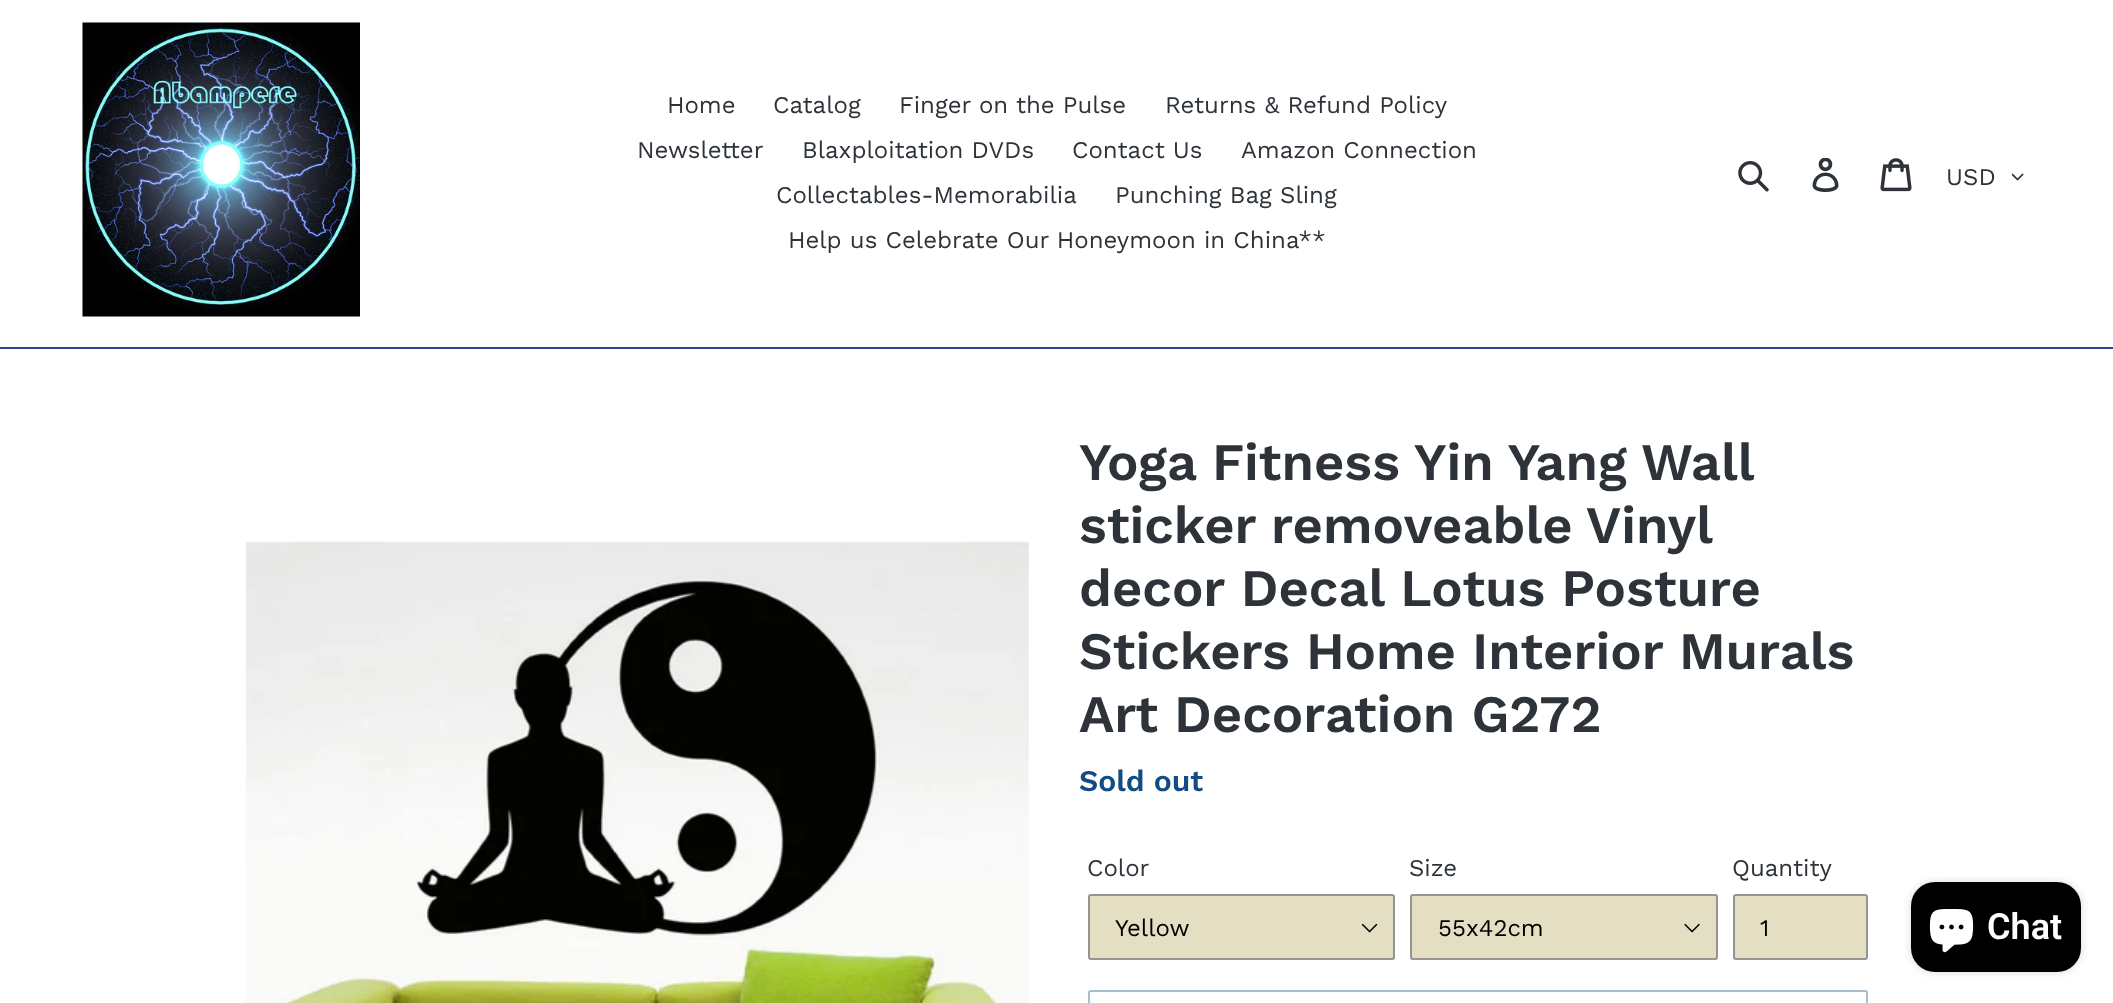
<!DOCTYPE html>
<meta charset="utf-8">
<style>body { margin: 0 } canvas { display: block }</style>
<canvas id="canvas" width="2113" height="1003"></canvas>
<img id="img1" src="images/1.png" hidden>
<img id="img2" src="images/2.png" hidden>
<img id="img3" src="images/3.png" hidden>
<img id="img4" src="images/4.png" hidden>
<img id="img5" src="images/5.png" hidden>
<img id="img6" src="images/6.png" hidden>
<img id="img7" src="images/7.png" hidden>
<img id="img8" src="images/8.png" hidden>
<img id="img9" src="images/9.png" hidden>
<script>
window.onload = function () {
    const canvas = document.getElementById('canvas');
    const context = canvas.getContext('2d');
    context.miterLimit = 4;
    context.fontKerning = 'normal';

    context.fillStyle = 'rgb(255, 255, 255)';
    context.fillRect(0, 0, 2113, 1003);
    context.fillStyle = 'rgb(59, 61, 152)';
    context.fillRect(0, 347, 2113, 2);
    context.drawImage(document.getElementById('img1'), 82, 22, 278, 295);
    context.drawImage(document.getElementById('img2'), 1738, 161, 31, 31);
    context.drawImage(document.getElementById('img3'), 1812, 158, 27, 34);
    context.drawImage(document.getElementById('img4'), 1880, 158, 32, 34);
    context.drawImage(document.getElementById('img5'), 2012, 173, 12, 8);
    context.drawImage(document.getElementById('img6'), 245, 541, 784, 462);
    context.fillStyle = 'rgb(228, 223, 195)';
    context.beginPath();
    context.roundRect(1088, 894, 307, 66, 3);
    context.fill();
    context.drawImage(document.getElementById('img7'), 1361, 923, 17, 10);
    context.beginPath();
    context.roundRect(1089, 895, 305, 64, 2);
    context.strokeStyle = 'rgb(148, 148, 148)';
    context.lineWidth = 2;
    context.stroke();
    context.beginPath();
    context.roundRect(1410, 894, 308, 66, 3);
    context.fill();
    context.drawImage(document.getElementById('img8'), 1684, 923, 16, 10);
    context.beginPath();
    context.roundRect(1411, 895, 306, 64, 2);
    context.stroke();
    context.beginPath();
    context.roundRect(1734, 895, 133, 64, 2);
    context.fill();
    context.stroke();
    context.beginPath();
    context.roundRect(1089, 991, 778, 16, 2);
    context.strokeStyle = 'rgb(170, 189, 203)';
    context.stroke();
    context.fillStyle = 'rgba(0, 0, 0, 0.15)';
    context.filter = 'blur(4px)';
    context.beginPath();
    context.roundRect(1911, 882, 170, 90, 24);
    context.fill();
    context.filter = 'none';
    context.fillStyle = 'rgb(0, 0, 0)';
    context.beginPath();
    context.roundRect(1911, 882, 170, 90, 24);
    context.fill();
    context.drawImage(document.getElementById('img9'), 1929, 909, 45, 44);
    context.font = '24px Work Sans';
    context.fillStyle = 'rgb(45, 51, 56)';
    context.fillText('Home', 667, 113);
    context.fillText('Catalog', 773, 113);
    context.fillText('Finger on the Pulse', 899, 113);
    context.fillText('Returns & Refund Policy', 1165, 113);
    context.fillText('Newsletter', 637, 158);
    context.fillText('Blaxploitation DVDs', 802, 158);
    context.fillText('Contact Us', 1072, 158);
    context.fillText('Amazon Connection', 1241, 158);
    context.fillText('Collectables-Memorabilia', 776, 203);
    context.fillText('Punching Bag Sling', 1115, 203);
    context.fillText('Help us Celebrate Our Honeymoon in China**', 788, 248);
    context.fillText('USD', 1946, 185);
    context.wordSpacing = '-0.5px';
    context.font = '600 52.5px Work Sans';
    context.fillText('Yoga Fitness Yin Yang Wall', 1079, 480);
    context.wordSpacing = '-1px';
    context.fillText('sticker removeable Vinyl', 1079, 543);
    context.wordSpacing = '0px';
    context.fillText('decor Decal Lotus Posture', 1079, 606);
    context.fillText('Stickers Home Interior Murals', 1079, 669);
    context.fillText('Art Decoration G272', 1079, 732);
    context.font = '600 30px Work Sans';
    context.fillStyle = 'rgb(19, 76, 132)';
    context.fillText('Sold out', 1079, 791);
    context.font = '24px Work Sans';
    context.fillStyle = 'rgb(45, 51, 56)';
    context.fillText('Color', 1087, 876);
    context.fillStyle = 'rgb(0, 0, 0)';
    context.fillText('Yellow', 1115, 936);
    context.fillStyle = 'rgb(45, 51, 56)';
    context.fillText('Size', 1409, 876);
    context.fillStyle = 'rgb(0, 0, 0)';
    context.fillText('55x42cm', 1438, 936);
    context.fillStyle = 'rgb(45, 51, 56)';
    context.fillText('Quantity', 1732, 876);
    context.fillStyle = 'rgb(0, 0, 0)';
    context.fillText('1', 1760, 936);
    context.font = '600 36px Roboto';
    context.fillStyle = 'rgb(255, 255, 255)';
    context.fillText('Chat', 1987, 939);
};
</script>
